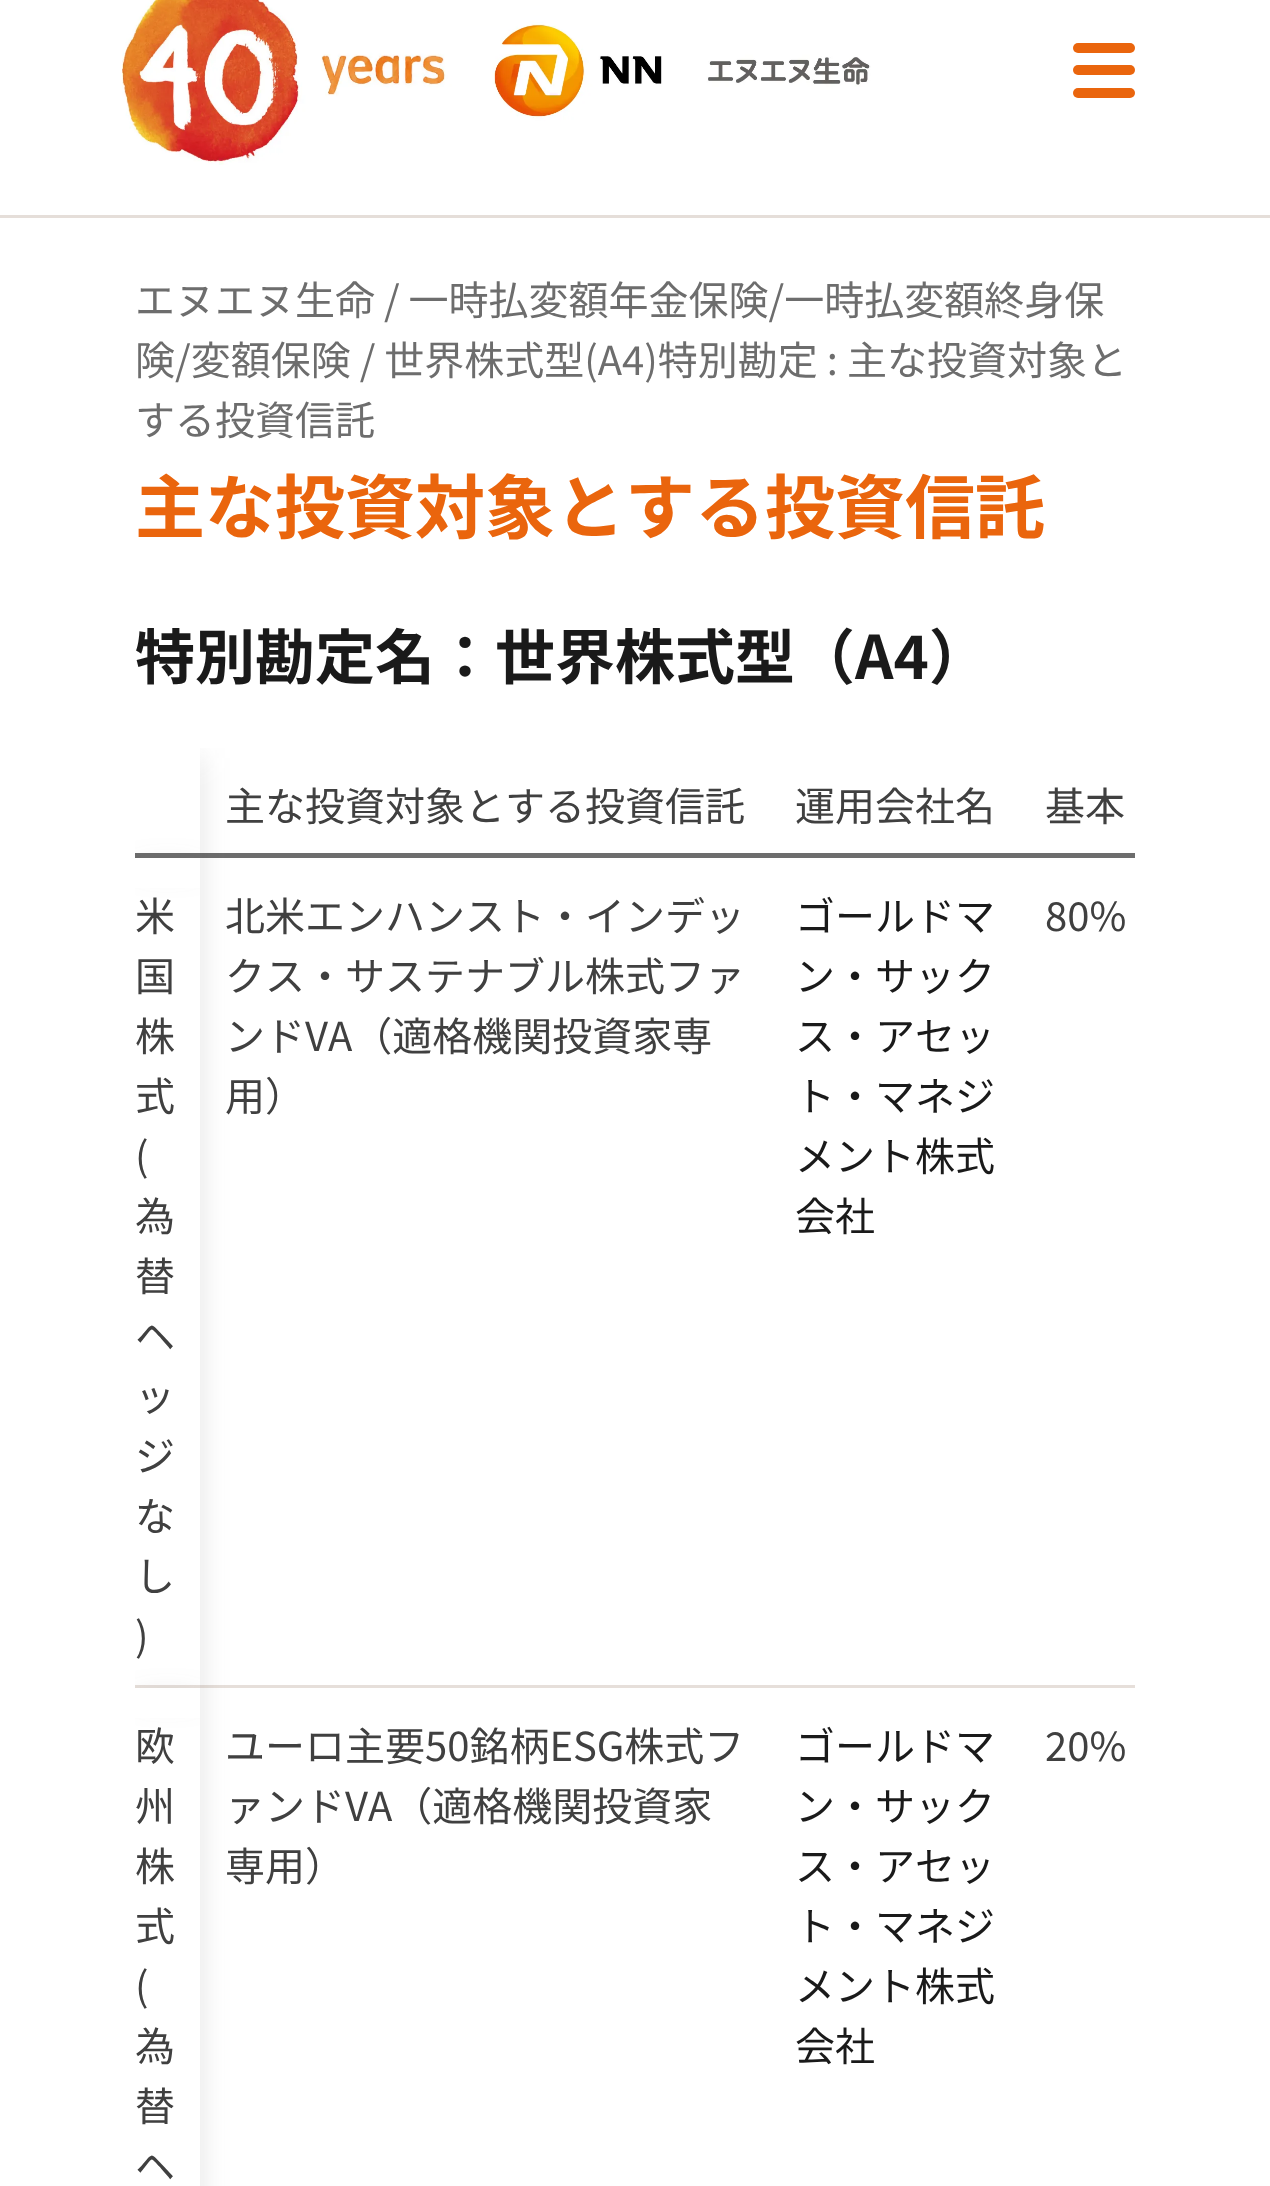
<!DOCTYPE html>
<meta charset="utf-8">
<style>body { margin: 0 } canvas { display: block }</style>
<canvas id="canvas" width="1270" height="2186"></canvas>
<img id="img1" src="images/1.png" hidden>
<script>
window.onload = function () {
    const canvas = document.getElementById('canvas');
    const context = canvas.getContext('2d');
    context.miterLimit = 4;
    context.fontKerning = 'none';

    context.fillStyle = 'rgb(255, 255, 255)';
    context.fillRect(0, 0, 1270, 2186);
    context.fillStyle = 'rgb(229, 222, 217)';
    context.fillRect(0, 215, 1270, 3);
    context.drawImage(document.getElementById('img1'), 122, 0, 749, 165);
    context.fillStyle = 'rgb(234, 101, 13)';
    context.beginPath();
    context.roundRect(1073, 43, 62, 10, 5);
    context.fill();
    context.beginPath();
    context.roundRect(1073, 65, 62, 10, 5);
    context.fill();
    context.beginPath();
    context.roundRect(1073, 88, 62, 10, 5);
    context.fill();
    context.fillStyle = 'rgb(109, 109, 109)';
    context.fillRect(135, 853, 1000, 5);
    context.save();
    context.beginPath();
    context.rect(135, 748, 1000, 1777);
    context.clip();
    context.beginPath();
    context.moveTo(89, 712);
    context.lineTo(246, 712);
    context.lineTo(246, 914);
    context.lineTo(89, 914);
    context.closePath();
    context.moveTo(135, 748);
    context.lineTo(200, 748);
    context.lineTo(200, 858);
    context.lineTo(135, 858);
    context.closePath();
    context.clip('evenodd');
    context.fillStyle = 'rgba(65, 65, 65, 0.15)';
    context.filter = 'blur(15px)';
    context.beginPath();
    context.rect(135, 758, 65, 110);
    context.fill();
    context.filter = 'none';
    context.restore();
    context.fillStyle = 'rgb(255, 255, 255)';
    context.fillRect(135, 858, 65, 30);
    context.fillStyle = 'rgb(230, 223, 218)';
    context.fillRect(135, 1685, 1000, 3);
    context.save();
    context.beginPath();
    context.rect(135, 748, 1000, 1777);
    context.clip();
    context.beginPath();
    context.moveTo(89, 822);
    context.lineTo(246, 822);
    context.lineTo(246, 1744);
    context.lineTo(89, 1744);
    context.closePath();
    context.moveTo(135, 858);
    context.lineTo(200, 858);
    context.lineTo(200, 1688);
    context.lineTo(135, 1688);
    context.closePath();
    context.clip('evenodd');
    context.fillStyle = 'rgba(65, 65, 65, 0.15)';
    context.filter = 'blur(15px)';
    context.beginPath();
    context.rect(135, 868, 65, 830);
    context.fill();
    context.filter = 'none';
    context.restore();
    context.fillStyle = 'rgb(255, 255, 255)';
    context.fillRect(135, 1688, 65, 30);
    context.save();
    context.beginPath();
    context.rect(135, 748, 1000, 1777);
    context.clip();
    context.beginPath();
    context.moveTo(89, 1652);
    context.lineTo(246, 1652);
    context.lineTo(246, 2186);
    context.lineTo(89, 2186);
    context.closePath();
    context.moveTo(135, 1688);
    context.lineTo(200, 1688);
    context.lineTo(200, 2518);
    context.lineTo(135, 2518);
    context.closePath();
    context.clip('evenodd');
    context.fillStyle = 'rgba(65, 65, 65, 0.15)';
    context.filter = 'blur(15px)';
    context.beginPath();
    context.rect(135, 1698, 65, 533);
    context.fill();
    context.filter = 'none';
    context.restore();
    context.font = '40px Noto Sans JP';
    context.fillStyle = 'rgb(109, 109, 109)';
    context.fillText('エヌエヌ生命 / 一時払変額年金保険/一時払変額終身保', 135, 315);
    context.fillText('険/変額保険 / 世界株式型(A4)特別勘定 : 主な投資対象と', 135, 375);
    context.fillText('する投資信託', 135, 435);
    context.font = 'bold 70px Noto Sans JP';
    context.fillStyle = 'rgb(234, 101, 13)';
    context.fillText('主な投資対象とする投資信託', 135, 533);
    context.font = 'bold 60px Noto Sans JP';
    context.fillStyle = 'rgb(26, 26, 26)';
    context.fillText('特別勘定名：世界株式型（A4）', 135, 679);
    context.font = '40px Noto Sans JP';
    context.fillStyle = 'rgb(64, 64, 64)';
    context.fillText('主な投資対象とする投資信託', 225, 821);
    context.fillText('運用会社名', 795, 821);
    context.fillText('基本', 1045, 821);
    context.fillText('米', 135, 931);
    context.fillText('国', 135, 991);
    context.fillText('株', 135, 1051);
    context.fillText('式', 135, 1111);
    context.fillText('(', 135, 1171);
    context.fillText('為', 135, 1231);
    context.fillText('替', 135, 1291);
    context.fillText('ヘ', 135, 1351);
    context.fillText('ッ', 135, 1411);
    context.fillText('ジ', 135, 1471);
    context.fillText('な', 135, 1531);
    context.fillText('し', 135, 1591);
    context.fillText(')', 135, 1651);
    context.fillText('北米エンハンスト・インデッ', 225, 931);
    context.fillText('クス・サステナブル株式ファ', 225, 991);
    context.fillText('ンドVA（適格機関投資家専', 225, 1051);
    context.fillText('用）', 225, 1111);
    context.fillStyle = 'rgb(26, 26, 26)';
    context.fillText('ゴールドマ', 795, 931);
    context.fillText('ン・サック', 795, 991);
    context.fillText('ス・アセッ', 795, 1051);
    context.fillText('ト・マネジ', 795, 1111);
    context.fillText('メント株式', 795, 1171);
    context.fillText('会社', 795, 1231);
    context.fillStyle = 'rgb(64, 64, 64)';
    context.fillText('80%', 1045, 931);
    context.fillText('欧', 135, 1761);
    context.fillText('州', 135, 1821);
    context.fillText('株', 135, 1881);
    context.fillText('式', 135, 1941);
    context.fillText('(', 135, 2001);
    context.fillText('為', 135, 2061);
    context.fillText('替', 135, 2121);
    context.fillText('ヘ', 135, 2181);
    context.fillText('ユーロ主要50銘柄ESG株式フ', 225, 1761);
    context.fillText('ァンドVA（適格機関投資家', 225, 1821);
    context.fillText('専用）', 225, 1881);
    context.fillStyle = 'rgb(26, 26, 26)';
    context.fillText('ゴールドマ', 795, 1761);
    context.fillText('ン・サック', 795, 1821);
    context.fillText('ス・アセッ', 795, 1881);
    context.fillText('ト・マネジ', 795, 1941);
    context.fillText('メント株式', 795, 2001);
    context.fillText('会社', 795, 2061);
    context.fillStyle = 'rgb(64, 64, 64)';
    context.fillText('20%', 1045, 1761);
};
</script>
